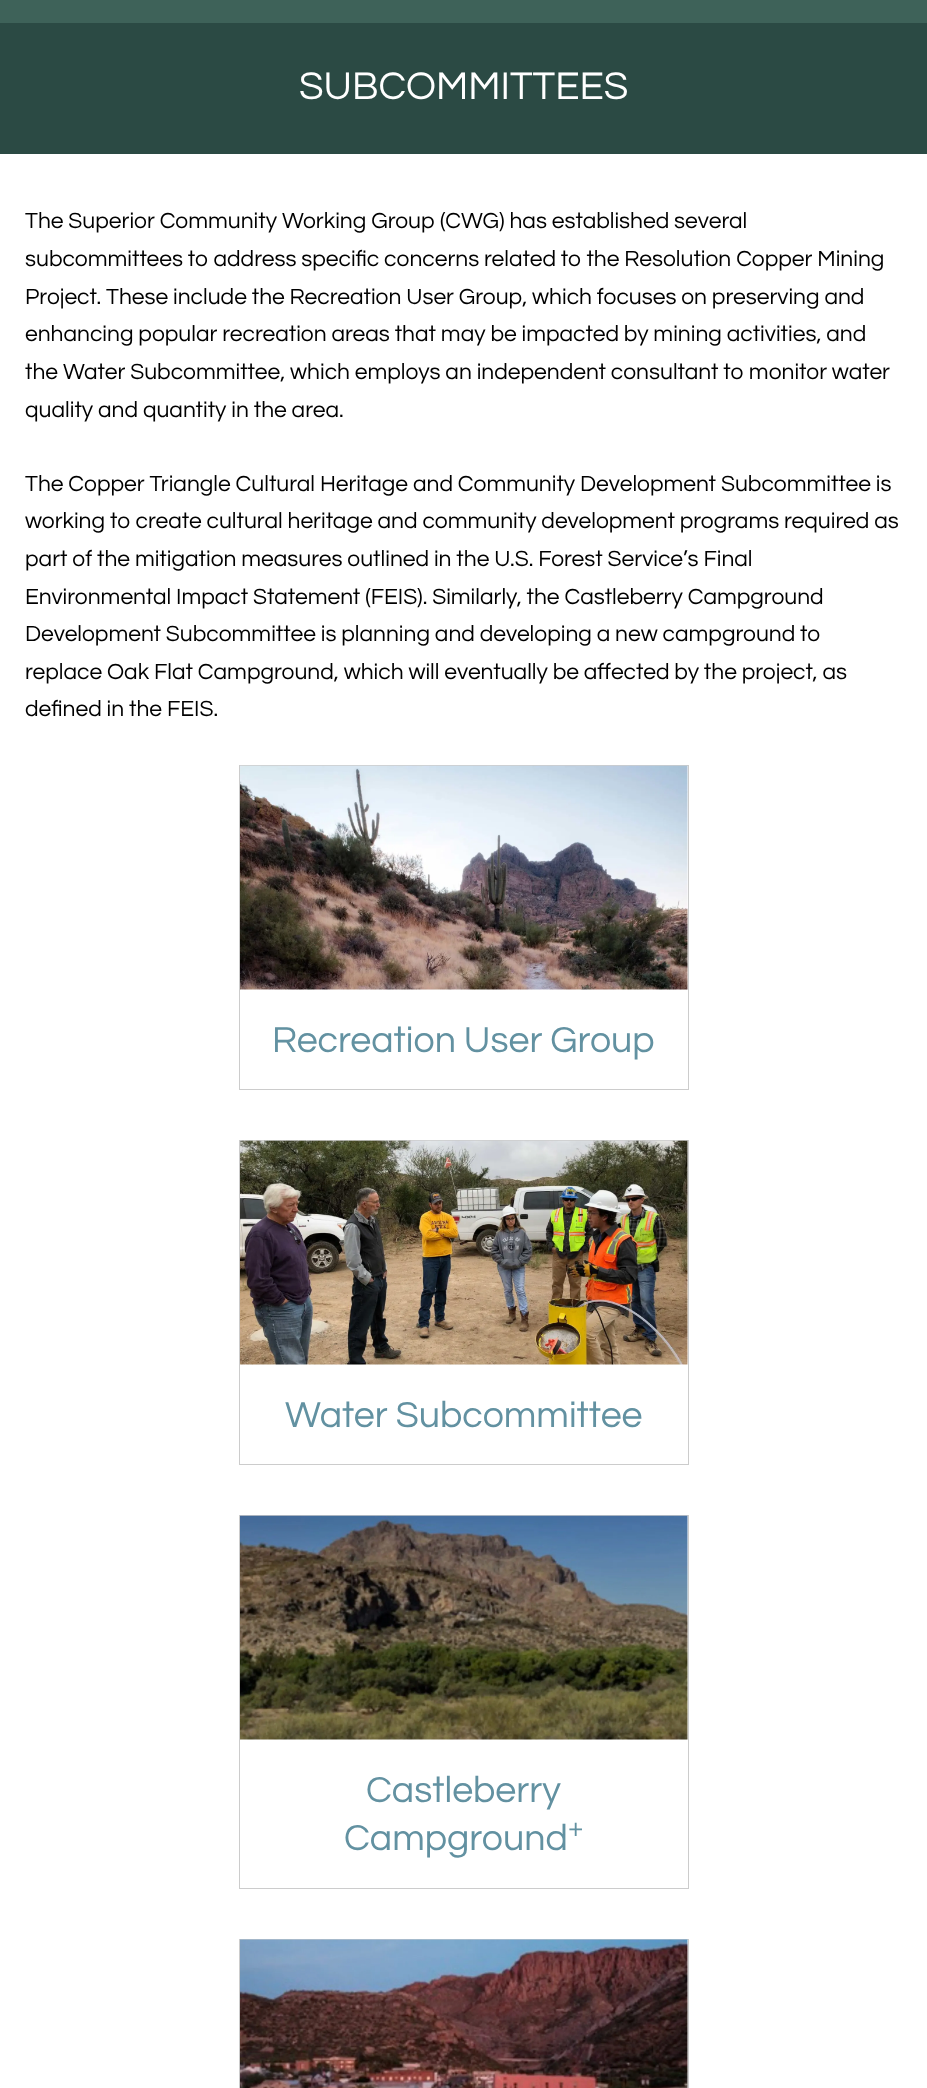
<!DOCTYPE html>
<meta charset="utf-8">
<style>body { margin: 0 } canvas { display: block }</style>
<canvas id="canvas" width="927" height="2088"></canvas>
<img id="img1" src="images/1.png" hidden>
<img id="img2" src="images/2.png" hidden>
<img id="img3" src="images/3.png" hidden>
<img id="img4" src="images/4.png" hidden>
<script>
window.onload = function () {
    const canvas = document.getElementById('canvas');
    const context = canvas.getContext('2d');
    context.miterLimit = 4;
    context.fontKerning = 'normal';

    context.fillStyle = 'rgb(255, 255, 255)';
    context.fillRect(0, 0, 927, 2088);
    context.fillStyle = 'rgb(62, 98, 89)';
    context.fillRect(0, 0, 927, 23);
    context.fillStyle = 'rgb(43, 74, 68)';
    context.fillRect(0, 23, 927, 131);
    context.strokeStyle = 'rgb(204, 204, 204)';
    context.strokeRect(239.5, 765.5, 449, 324);
    context.drawImage(document.getElementById('img1'), 240, 765, 448, 225);
    context.strokeRect(239.5, 1140.5, 449, 324);
    context.drawImage(document.getElementById('img2'), 240, 1140, 448, 225);
    context.strokeRect(239.5, 1515.5, 449, 373);
    context.drawImage(document.getElementById('img3'), 240, 1515, 448, 225);
    context.strokeRect(239.5, 1939.5, 449, 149);
    context.drawImage(document.getElementById('img4'), 240, 1939, 448, 149);
    context.font = '40px Questrial';
    context.fillStyle = 'rgb(255, 255, 255)';
    context.fillText('SUBCOMMITTEES', 299, 99);
    context.font = '22.8px Questrial';
    context.fillStyle = 'rgb(0, 0, 0)';
    context.fillText('The Superior Community Working Group (CWG) has established several', 25, 228);
    context.fillText('subcommittees to address specific concerns related to the Resolution Copper Mining', 25, 266);
    context.fillText('Project. These include the Recreation User Group, which focuses on preserving and', 25, 304);
    context.fillText('enhancing popular recreation areas that may be impacted by mining activities, and', 25, 341);
    context.fillText('the Water Subcommittee, which employs an independent consultant to monitor water', 25, 379);
    context.fillText('quality and quantity in the area.', 25, 417);
    context.fillText('The Copper Triangle Cultural Heritage and Community Development Subcommittee is', 25, 491);
    context.fillText('working to create cultural heritage and community development programs required as', 25, 528);
    context.fillText('part of the mitigation measures outlined in the U.S. Forest Service’s Final', 25, 566);
    context.fillText('Environmental Impact Statement (FEIS). Similarly, the Castleberry Campground', 25, 604);
    context.fillText('Development Subcommittee is planning and developing a new campground to', 25, 641);
    context.fillText('replace Oak Flat Campground, which will eventually be affected by the project, as', 25, 679);
    context.fillText('defined in the FEIS.', 25, 716);
    context.font = '37.5px Questrial';
    context.fillStyle = 'rgb(98, 145, 161)';
    context.fillText('Recreation User Group', 272, 1052);
    context.fillText('Water Subcommittee', 285, 1427);
    context.fillText('Castleberry', 366, 1802);
    context.fillText('Campground', 344, 1850);
    context.font = '28px Questrial';
    context.fillText('+', 568, 1836);
};
</script>
